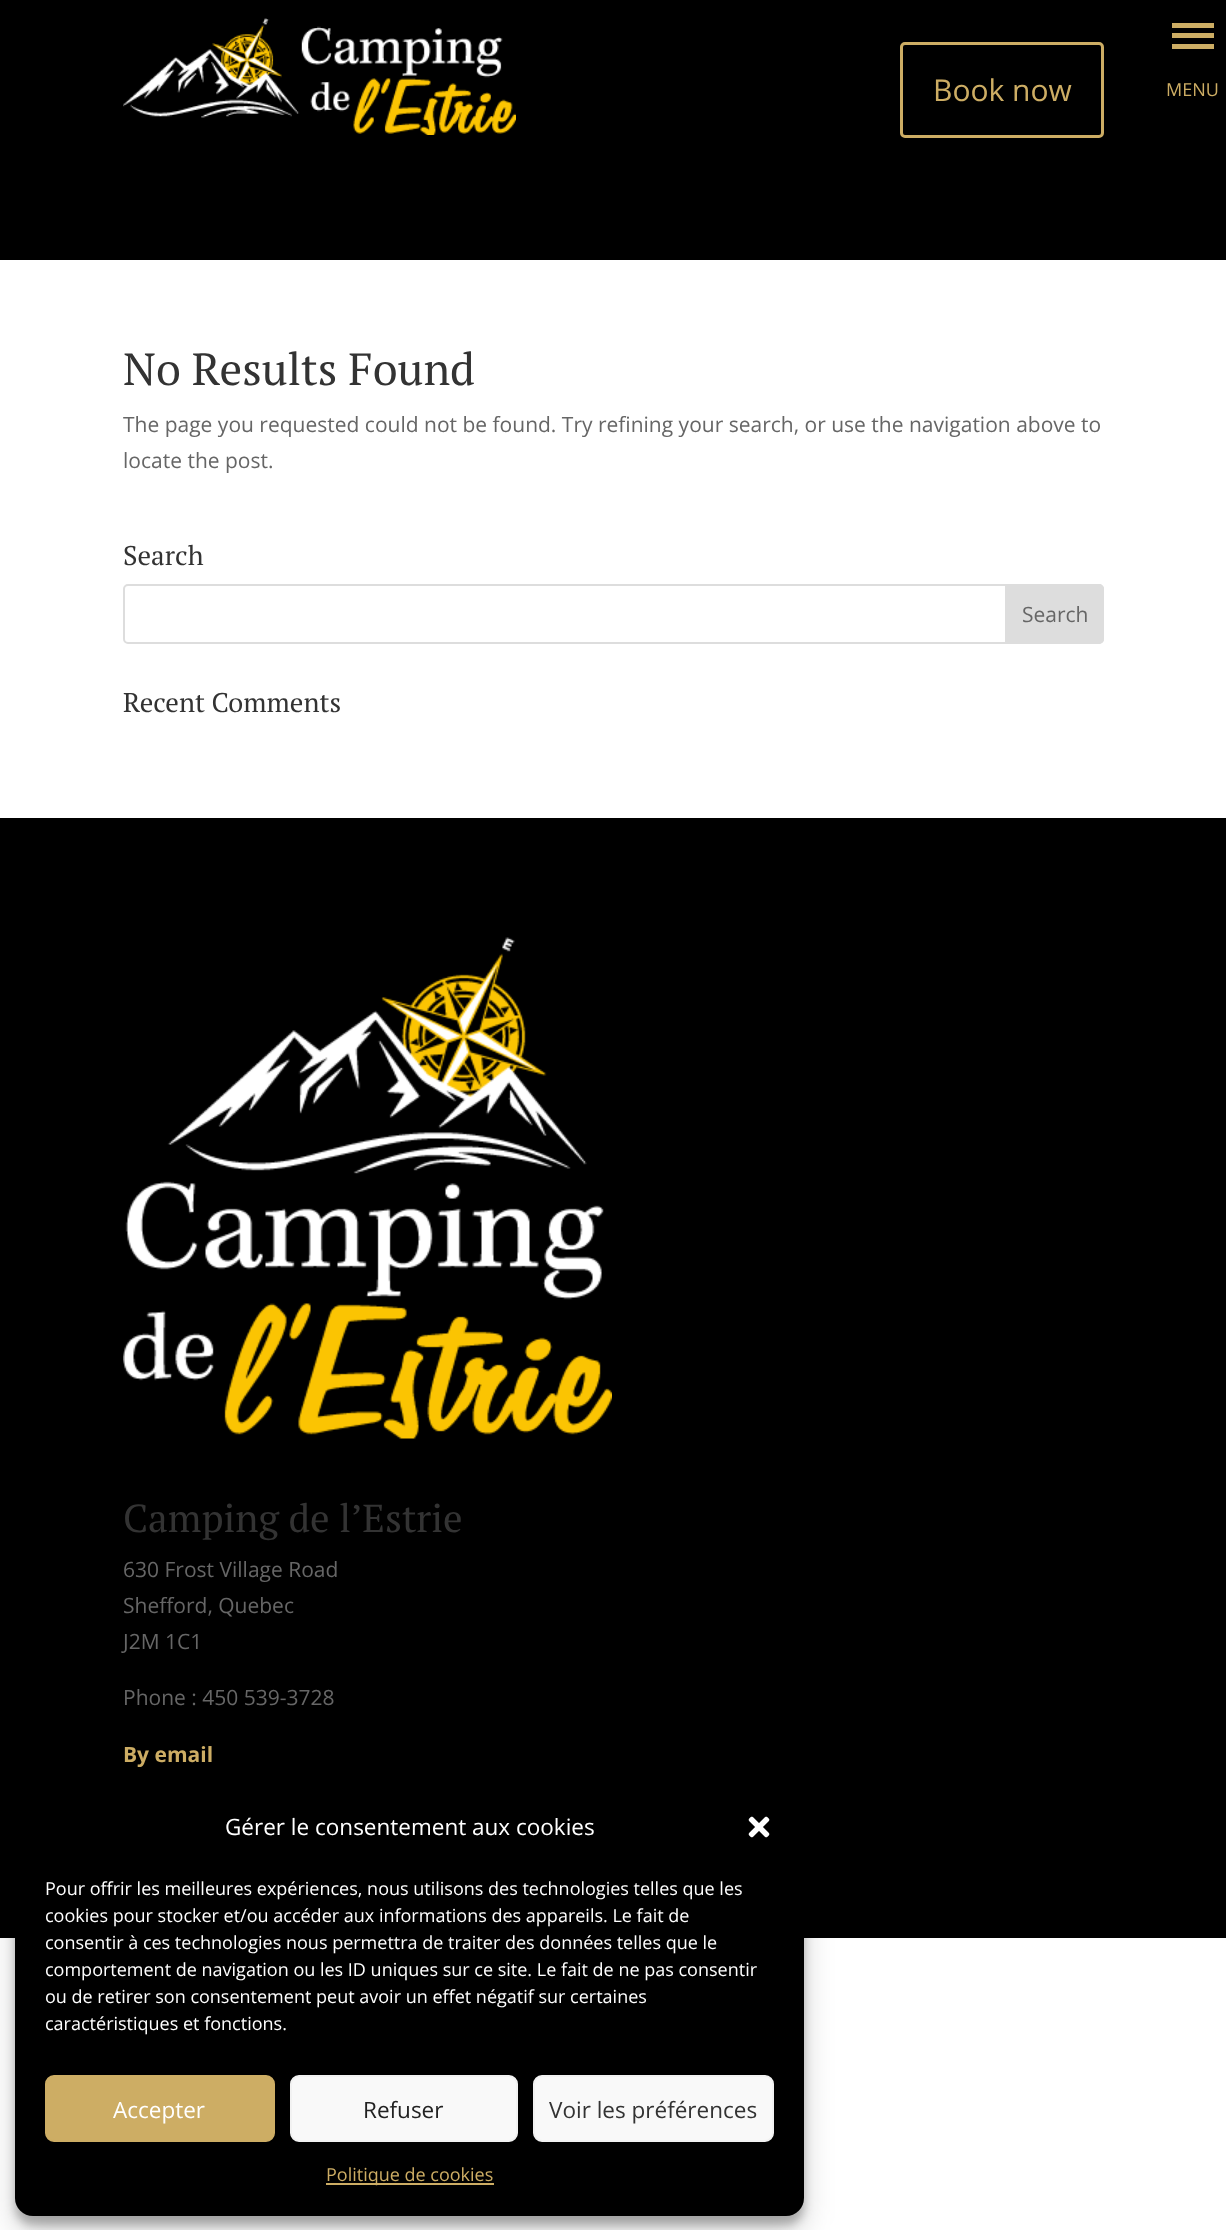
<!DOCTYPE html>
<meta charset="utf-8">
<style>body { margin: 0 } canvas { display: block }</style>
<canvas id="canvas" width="1226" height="2230"></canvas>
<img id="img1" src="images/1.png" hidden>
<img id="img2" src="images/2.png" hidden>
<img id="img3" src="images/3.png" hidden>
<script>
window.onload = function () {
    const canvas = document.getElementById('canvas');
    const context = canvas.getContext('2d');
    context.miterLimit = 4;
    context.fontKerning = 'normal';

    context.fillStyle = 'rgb(255, 255, 255)';
    context.fillRect(0, 0, 1226, 2230);
    context.fillStyle = 'rgb(0, 0, 0)';
    context.fillRect(0, 0, 1226, 260);
    context.drawImage(document.getElementById('img1'), 123, 18, 393, 117);
    context.beginPath();
    context.roundRect(901.5, 43.5, 201, 93, 3.5);
    context.strokeStyle = 'rgb(205, 173, 100)';
    context.lineWidth = 3;
    context.stroke();
    context.beginPath();
    context.roundRect(124, 585, 979, 58, 4);
    context.strokeStyle = 'rgb(221, 221, 221)';
    context.lineWidth = 2;
    context.stroke();
    context.fillStyle = 'rgb(221, 221, 221)';
    context.beginPath();
    context.roundRect(1006, 585, 97, 58, [0, 4, 4, 0]);
    context.fill();
    context.stroke();
    context.fillStyle = 'rgb(0, 0, 0)';
    context.fillRect(0, 818, 1226, 1120);
    context.drawImage(document.getElementById('img2'), 123, 937, 489, 502);
    context.fillStyle = 'rgb(205, 173, 100)';
    context.fillRect(1172, 33, 42, 5);
    context.fillRect(1172, 23, 42, 5);
    context.fillRect(1172, 44, 42, 5);
    context.fillStyle = 'rgba(0, 0, 0, 0.23)';
    context.filter = 'blur(4.5px)';
    context.beginPath();
    context.roundRect(15, 1796, 789, 429, 18);
    context.fill();
    context.filter = 'none';
    context.fillStyle = 'rgba(0, 0, 0, 0.19)';
    context.filter = 'blur(15px)';
    context.beginPath();
    context.roundRect(15, 1802, 789, 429, 18);
    context.fill();
    context.filter = 'none';
    context.fillStyle = 'rgb(0, 0, 0)';
    context.beginPath();
    context.roundRect(15, 1787, 789, 429, 18);
    context.fill();
    context.drawImage(document.getElementById('img3'), 748, 1816, 22, 22);
    context.fillStyle = 'rgb(205, 173, 100)';
    context.beginPath();
    context.roundRect(46, 2076, 228, 65, 8);
    context.fill();
    context.strokeStyle = 'rgb(205, 173, 100)';
    context.stroke();
    context.fillStyle = 'rgb(249, 249, 249)';
    context.beginPath();
    context.roundRect(291, 2076, 226, 65, 8);
    context.fill();
    context.strokeStyle = 'rgb(242, 242, 242)';
    context.stroke();
    context.beginPath();
    context.roundRect(534, 2076, 239, 65, 8);
    context.fill();
    context.stroke();
    context.fillStyle = 'rgb(205, 173, 100)';
    context.fillRect(326, 2183, 168, 2);
    context.font = '30px Open Sans';
    context.fillText('Book now', 933, 101);
    context.font = '45px PT Serif';
    context.fillStyle = 'rgb(51, 51, 51)';
    context.fillText('No Results Found', 123, 385);
    context.font = '21px Open Sans';
    context.fillStyle = 'rgb(102, 102, 102)';
    context.fillText('The page you requested could not be found. Try refining your search, or use the navigation above to', 123, 432);
    context.fillText('locate the post.', 123, 468);
    context.font = '27px PT Serif';
    context.fillStyle = 'rgb(51, 51, 51)';
    context.fillText('Search', 123, 565);
    context.font = '21px Open Sans';
    context.fillStyle = 'rgb(102, 102, 102)';
    context.fillText('Search', 1022, 622);
    context.font = '27px PT Serif';
    context.fillStyle = 'rgb(51, 51, 51)';
    context.fillText('Recent Comments', 123, 712);
    context.font = '39px PT Serif';
    context.fillText('Camping de l’Estrie', 123, 1532);
    context.font = '21px Open Sans';
    context.fillStyle = 'rgb(102, 102, 102)';
    context.fillText('630 Frost Village Road', 123, 1577);
    context.fillText('Shefford, Quebec', 123, 1613);
    context.fillText('J2M 1C1', 123, 1649);
    context.fillText('Phone : 450 539-3728', 123, 1705);
    context.font = 'bold 21px Open Sans';
    context.fillStyle = 'rgb(205, 173, 100)';
    context.fillText('By email', 123, 1762);
    context.font = '18px Open Sans';
    context.fillText('MENU', 1166, 96);
    context.font = '22.5px Open Sans';
    context.fillStyle = 'rgb(255, 255, 255)';
    context.fillText('Gérer le consentement aux cookies', 225, 1835);
    context.font = '18px Open Sans';
    context.fillText('Pour offrir les meilleures expériences, nous utilisons des technologies telles que les', 45, 1895);
    context.fillText('cookies pour stocker et/ou accéder aux informations des appareils. Le fait de', 45, 1922);
    context.fillText('consentir à ces technologies nous permettra de traiter des données telles que le', 45, 1949);
    context.fillText('comportement de navigation ou les ID uniques sur ce site. Le fait de ne pas consentir', 45, 1976);
    context.fillText('ou de retirer son consentement peut avoir un effet négatif sur certaines', 45, 2003);
    context.fillText('caractéristiques et fonctions.', 45, 2030);
    context.font = '22.5px Open Sans';
    context.fillText('Accepter', 113, 2118);
    context.fillStyle = 'rgb(34, 34, 34)';
    context.fillText('Refuser', 363, 2118);
    context.fillStyle = 'rgb(51, 51, 51)';
    context.fillText('Voir les préférences', 549, 2118);
    context.font = '18px Open Sans';
    context.fillStyle = 'rgb(205, 173, 100)';
    context.fillText('Politique de cookies', 326, 2181);
};
</script>
